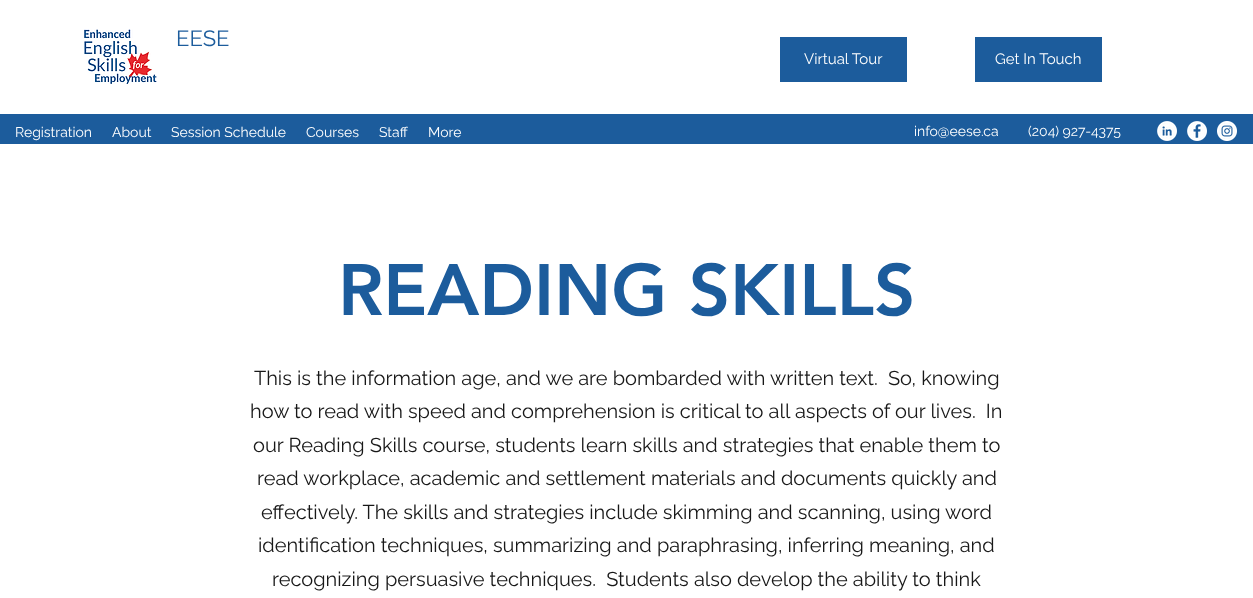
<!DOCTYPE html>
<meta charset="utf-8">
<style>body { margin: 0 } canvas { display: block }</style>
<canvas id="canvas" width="1253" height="598"></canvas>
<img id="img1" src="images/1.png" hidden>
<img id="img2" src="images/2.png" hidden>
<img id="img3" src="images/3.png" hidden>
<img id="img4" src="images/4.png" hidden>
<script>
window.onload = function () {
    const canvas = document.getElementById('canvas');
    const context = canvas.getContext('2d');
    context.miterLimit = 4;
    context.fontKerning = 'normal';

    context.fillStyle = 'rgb(255, 255, 255)';
    context.fillRect(0, 0, 1253, 598);
    context.drawImage(document.getElementById('img1'), 84, 29, 73, 55);
    context.fillStyle = 'rgb(28, 92, 156)';
    context.fillRect(780, 37, 127, 45);
    context.fillRect(975, 37, 127, 45);
    context.fillRect(0, 114, 1253, 30);
    context.drawImage(document.getElementById('img2'), 1157, 121, 20, 20);
    context.drawImage(document.getElementById('img3'), 1187, 121, 20, 20);
    context.drawImage(document.getElementById('img4'), 1217, 121, 20, 20);
    context.font = '22px Raleway';
    context.fillText('EESE', 176, 46);
    context.font = '15px Raleway';
    context.fillStyle = 'rgb(255, 255, 255)';
    context.fillText('Virtual Tour', 804, 64);
    context.fillText('Get In Touch', 995, 64);
    context.font = '14px Raleway';
    context.fillText('Registration', 15, 137);
    context.fillText('About', 112, 137);
    context.fillText('Session Schedule', 171, 137);
    context.fillText('Courses', 306, 137);
    context.fillText('Staff', 379, 137);
    context.fillText('More', 428, 137);
    context.fillText('info@eese.ca', 914, 136);
    context.fillText('(204) 927-4375', 1028, 136);
    context.font = '900 72px "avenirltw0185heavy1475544"';
    context.fillStyle = 'rgb(28, 92, 156)';
    context.fillText('READING SKILLS', 338, 315);
    context.font = '20px Raleway';
    context.fillStyle = 'rgb(24, 24, 24)';
    context.fillText('This is the information age, and we are bombarded with written text.  So, knowing', 254, 385);
    context.fillText('how to read with speed and comprehension is critical to all aspects of our lives.  In', 250, 418);
    context.fillText('our Reading Skills course, students learn skills and strategies that enable them to', 253, 452);
    context.fillText('read workplace, academic and settlement materials and documents quickly and', 257, 485);
    context.fillText('effectively. The skills and strategies include skimming and scanning, using word', 261, 519);
    context.fillText('identification techniques, summarizing and paraphrasing, inferring meaning, and', 258, 552);
    context.fillText('recognizing persuasive techniques.  Students also develop the ability to think', 272, 586);
};
</script>
